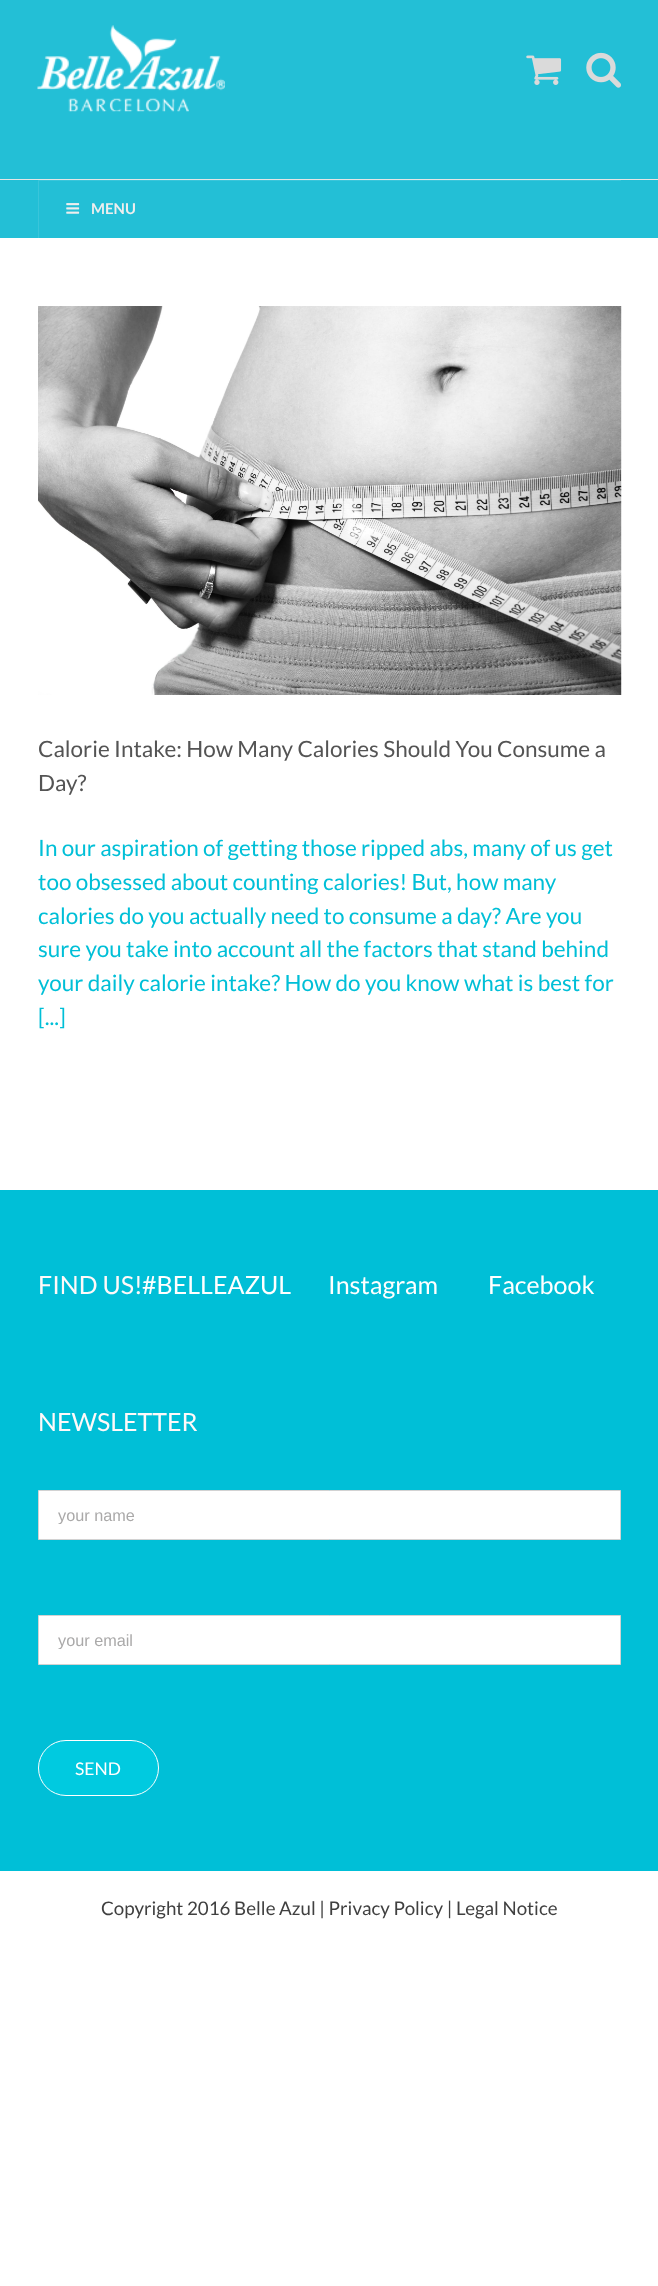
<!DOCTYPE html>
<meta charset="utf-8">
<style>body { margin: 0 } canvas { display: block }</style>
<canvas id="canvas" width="658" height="2286"></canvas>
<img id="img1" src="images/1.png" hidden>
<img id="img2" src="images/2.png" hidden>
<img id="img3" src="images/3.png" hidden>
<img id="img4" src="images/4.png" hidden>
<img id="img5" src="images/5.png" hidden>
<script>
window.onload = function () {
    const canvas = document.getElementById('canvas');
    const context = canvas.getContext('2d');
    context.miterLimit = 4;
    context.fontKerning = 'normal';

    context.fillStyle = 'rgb(255, 255, 255)';
    context.fillRect(0, 0, 658, 2286);
    context.fillStyle = 'rgb(35, 191, 214)';
    context.fillRect(0, 0, 658, 179);
    context.fillStyle = 'rgb(229, 229, 229)';
    context.fillRect(0, 179, 658, 1);
    context.drawImage(document.getElementById('img1'), 37, 25, 188, 87);
    context.drawImage(document.getElementById('img2'), 526, 55, 36, 30);
    context.drawImage(document.getElementById('img3'), 586, 52, 35, 36);
    context.fillStyle = 'rgb(35, 191, 214)';
    context.fillRect(0, 180, 658, 58);
    context.save();
    context.beginPath();
    context.rect(38, 180, 583, 58);
    context.clip();
    context.fillStyle = 'rgb(57, 197, 218)';
    context.beginPath();
    context.moveTo(-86, 56);
    context.lineTo(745, 56);
    context.lineTo(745, 361);
    context.lineTo(-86, 361);
    context.closePath();
    context.moveTo(39, 181);
    context.lineTo(622, 181);
    context.lineTo(622, 239);
    context.lineTo(39, 239);
    context.closePath();
    context.fill('evenodd');
    context.restore();
    context.drawImage(document.getElementById('img4'), 66, 203, 14, 11);
    context.drawImage(document.getElementById('img5'), 38, 306, 584, 389);
    context.fillStyle = 'rgb(0, 191, 215)';
    context.fillRect(0, 1190, 658, 681);
    context.fillStyle = 'rgb(255, 255, 255)';
    context.beginPath();
    context.rect(38.5, 1490.5, 582, 49);
    context.fill();
    context.strokeStyle = 'rgb(210, 210, 210)';
    context.stroke();
    context.beginPath();
    context.rect(38.5, 1615.5, 582, 49);
    context.fill();
    context.stroke();
    context.fillStyle = 'rgb(0, 202, 224)';
    context.beginPath();
    context.roundRect(38.5, 1740.5, 120, 55, 27.5);
    context.fill();
    context.strokeStyle = 'rgb(255, 255, 255)';
    context.stroke();
    context.font = 'bold 15px Lato';
    context.fillStyle = 'rgb(238, 238, 238)';
    context.fillText('MENU', 91, 214);
    context.font = '22.5px Lato';
    context.fillStyle = 'rgb(84, 84, 84)';
    context.fillText('Calorie Intake: How Many Calories Should You Consume a', 38, 757);
    context.fillText('Day?', 38, 791);
    context.fillStyle = 'rgb(0, 191, 215)';
    context.fillText('In our aspiration of getting those ripped abs, many of us get', 38, 856);
    context.fillText('too obsessed about counting calories! But, how many', 38, 890);
    context.fillText('calories do you actually need to consume a day? Are you', 38, 924);
    context.fillText('sure you take into account all the factors that stand behind', 38, 957);
    context.fillText('your daily calorie intake? How do you know what is best for', 38, 991);
    context.fillText('[...]', 38, 1025);
    context.font = '25px Lato';
    context.fillStyle = 'rgb(255, 249, 249)';
    context.fillText('FIND US!', 38, 1294);
    context.fillStyle = 'rgb(255, 255, 255)';
    context.fillText('#BELLEAZUL', 142, 1294);
    context.fillText('Instagram', 328, 1294);
    context.fillText('Facebook', 488, 1294);
    context.fillStyle = 'rgb(255, 249, 249)';
    context.fillText('NEWSLETTER', 38, 1431);
    context.save();
    context.beginPath();
    context.rect(58, 1505, 543, 19);
    context.clip();
    context.font = '16.25px Liberation Sans';
    context.fillStyle = 'rgb(170, 169, 169)';
    context.fillText('your name', 58, 1521);
    context.restore();
    context.save();
    context.beginPath();
    context.rect(58, 1630, 543, 19);
    context.clip();
    context.font = '16.25px Liberation Sans';
    context.fillStyle = 'rgb(170, 169, 169)';
    context.fillText('your email', 58, 1646);
    context.restore();
    context.font = '17.5px Lato';
    context.fillStyle = 'rgb(255, 255, 255)';
    context.fillText('SEND', 75, 1775);
    context.font = '18.75px Lato';
    context.fillStyle = 'rgb(64, 64, 64)';
    context.fillText('Copyright 2016 Belle Azul | Privacy Policy | Legal Notice', 101, 1915);
};
</script>
